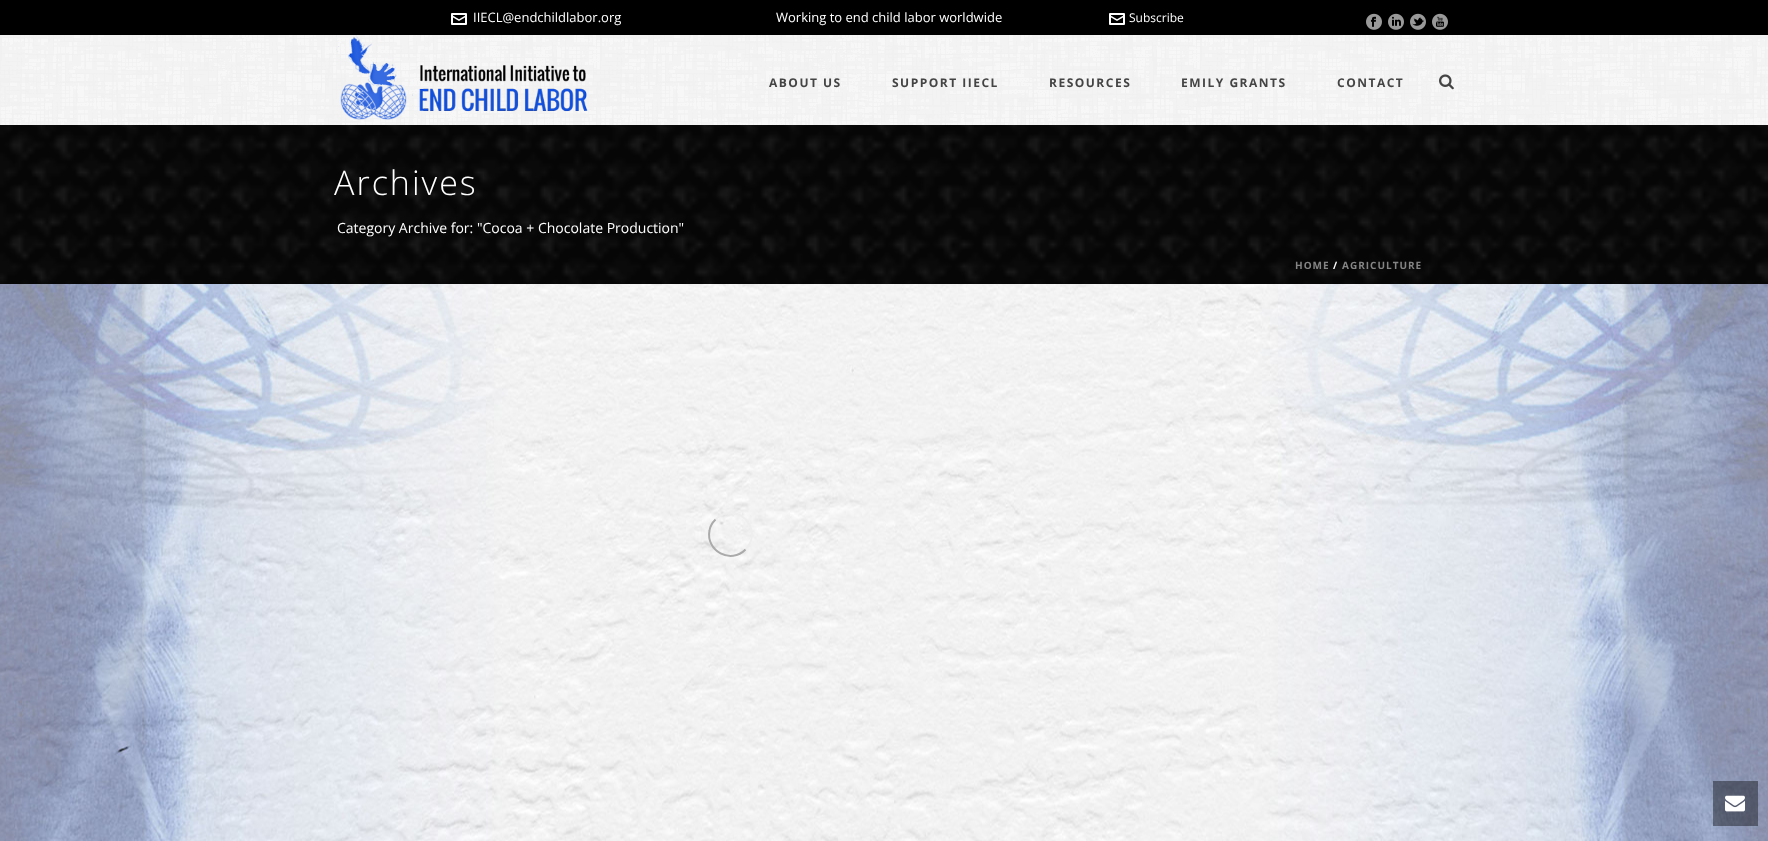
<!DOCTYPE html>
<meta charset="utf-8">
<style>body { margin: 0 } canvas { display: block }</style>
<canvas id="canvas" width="1768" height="841"></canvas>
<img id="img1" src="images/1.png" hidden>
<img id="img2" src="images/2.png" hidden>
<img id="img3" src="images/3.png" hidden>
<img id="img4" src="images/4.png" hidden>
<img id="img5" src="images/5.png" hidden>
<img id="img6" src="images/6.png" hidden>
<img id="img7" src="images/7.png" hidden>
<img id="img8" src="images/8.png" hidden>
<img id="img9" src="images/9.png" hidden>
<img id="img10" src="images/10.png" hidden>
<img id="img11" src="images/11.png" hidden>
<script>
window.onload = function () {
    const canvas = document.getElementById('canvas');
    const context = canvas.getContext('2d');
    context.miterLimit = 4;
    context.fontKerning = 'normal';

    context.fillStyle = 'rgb(255, 255, 255)';
    context.fillRect(0, 0, 1768, 841);
    context.drawImage(document.getElementById('img1'), 0, 125, 1768, 159);
    context.fillStyle = 'rgb(0, 0, 0)';
    context.fillRect(0, 0, 1768, 35);
    context.drawImage(document.getElementById('img2'), 451, 13, 16, 12);
    context.drawImage(document.getElementById('img2'), 1109, 13, 16, 12);
    context.drawImage(document.getElementById('img3'), 1366, 13, 16, 17);
    context.drawImage(document.getElementById('img4'), 1388, 13, 16, 17);
    context.drawImage(document.getElementById('img5'), 1410, 13, 16, 17);
    context.drawImage(document.getElementById('img6'), 1432, 13, 16, 17);
    context.drawImage(document.getElementById('img7'), 0, 35, 1768, 90);
    context.drawImage(document.getElementById('img8'), 336, 35, 252, 85);
    context.drawImage(document.getElementById('img9'), 1439, 74, 15, 16);
    context.drawImage(document.getElementById('img10'), 0, 284, 1768, 557);
    context.beginPath();
    context.moveTo(715.5, 519.5);
    context.bezierCurveTo(718.5, 516.5, 722, 514, 726.5, 513.5);
    context.bezierCurveTo(747, 509.5, 760.5, 535, 745.5, 549.5);
    context.strokeStyle = 'rgb(238, 238, 238)';
    context.lineWidth = 2;
    context.stroke();
    context.beginPath();
    context.moveTo(745.5, 549.5);
    context.bezierCurveTo(731, 564.5, 705.5, 551, 709.5, 530.5);
    context.bezierCurveTo(710, 526, 712.5, 522.5, 715.5, 519.5);
    context.strokeStyle = 'rgb(170, 170, 170)';
    context.stroke();
    context.fillStyle = 'rgba(0, 0, 0, 0.4)';
    context.fillRect(1713, 781, 45, 45);
    context.drawImage(document.getElementById('img11'), 1725, 795, 20, 17);
    context.font = '13px Open Sans';
    context.fillStyle = 'rgb(255, 255, 255)';
    context.fillText('IIECL@endchildlabor.org', 473, 22);
    context.fillText('Working to end child labor worldwide', 776, 22);
    context.font = '12px Open Sans';
    context.fillText('Subscribe', 1129, 22);
    context.letterSpacing = '1.5px';
    context.font = 'bold 12px Open Sans';
    context.fillStyle = 'rgb(68, 68, 68)';
    context.fillText('ABOUT US', 769, 87);
    context.fillText('SUPPORT IIECL', 892, 87);
    context.fillText('RESOURCES', 1049, 87);
    context.fillText('EMILY GRANTS', 1181, 87);
    context.fillText('CONTACT', 1337, 87);
    context.letterSpacing = '2px';
    context.font = '300 34px Open Sans';
    context.fillStyle = 'rgb(255, 255, 255)';
    context.fillText('Archives', 334, 195);
    context.letterSpacing = '0px';
    context.font = '14px Open Sans';
    context.fillText('Category Archive for: "Cocoa + Chocolate Production"', 337, 233);
    context.letterSpacing = '1px';
    context.font = 'bold 10px Open Sans';
    context.fillStyle = 'rgb(132, 132, 132)';
    context.fillText('HOME', 1295, 269);
    context.fillStyle = 'rgb(255, 255, 255)';
    context.fillText('/', 1333, 269);
    context.fillStyle = 'rgb(132, 132, 132)';
    context.fillText('AGRICULTURE', 1342, 269);
};
</script>
